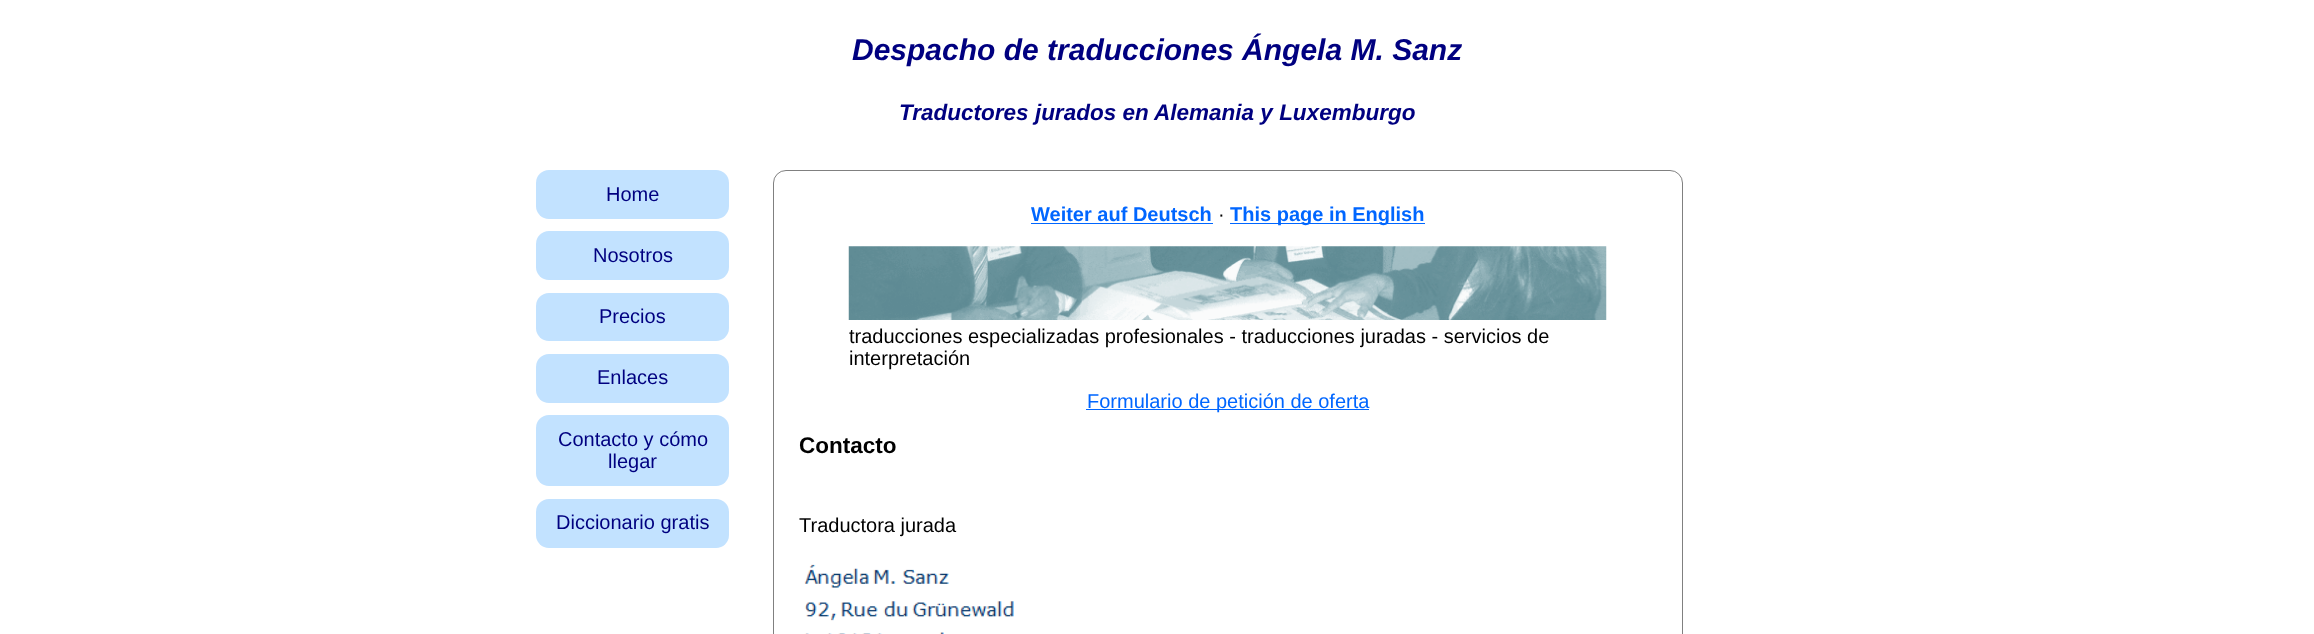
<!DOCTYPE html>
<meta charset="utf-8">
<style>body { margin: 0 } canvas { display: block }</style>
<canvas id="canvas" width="2314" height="634"></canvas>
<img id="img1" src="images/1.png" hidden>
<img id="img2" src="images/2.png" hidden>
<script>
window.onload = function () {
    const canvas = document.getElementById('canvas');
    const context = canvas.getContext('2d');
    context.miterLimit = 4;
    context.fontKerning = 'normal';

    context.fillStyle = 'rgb(255, 255, 255)';
    context.fillRect(0, 0, 2314, 634);
    context.fillStyle = 'rgb(194, 226, 255)';
    context.beginPath();
    context.roundRect(536, 170, 193, 49, 13);
    context.fill();
    context.beginPath();
    context.roundRect(536, 231, 193, 49, 13);
    context.fill();
    context.beginPath();
    context.roundRect(536, 293, 193, 48, 13);
    context.fill();
    context.beginPath();
    context.roundRect(536, 354, 193, 49, 13);
    context.fill();
    context.beginPath();
    context.roundRect(536, 415, 193, 71, 13);
    context.fill();
    context.beginPath();
    context.roundRect(536, 499, 193, 49, 13);
    context.fill();
    context.beginPath();
    context.roundRect(773.5, 170.5, 909, 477, 12.5);
    context.strokeStyle = 'rgb(128, 128, 128)';
    context.stroke();
    context.fillStyle = 'rgb(0, 102, 255)';
    context.fillRect(1031, 223, 182, 1);
    context.fillRect(1230, 223, 195, 1);
    context.drawImage(document.getElementById('img1'), 848, 246, 759, 74);
    context.fillRect(1086, 409, 283, 1);
    context.drawImage(document.getElementById('img2'), 804, 564, 210, 70);
    context.font = 'italic bold 30px Liberation Sans';
    context.fillStyle = 'rgb(0, 0, 128)';
    context.fillText('Despacho de traducciones Ángela M. Sanz', 852, 60);
    context.font = 'italic bold 22.5px Liberation Sans';
    context.fillText('Traductores jurados en Alemania y Luxemburgo', 899, 120);
    context.font = '20px Liberation Sans';
    context.fillText('Home', 606, 201);
    context.fillText('Nosotros', 593, 262);
    context.fillText('Precios', 599, 323);
    context.fillText('Enlaces', 597, 384);
    context.fillText('Contacto y cómo', 558, 446);
    context.fillText('llegar', 608, 468);
    context.fillText('Diccionario gratis', 556, 529);
    context.font = 'bold 20px Liberation Sans';
    context.fillStyle = 'rgb(0, 102, 255)';
    context.fillText('Weiter auf Deutsch', 1031, 221);
    context.font = '20px Liberation Sans';
    context.fillStyle = 'rgb(0, 0, 0)';
    context.fillText('·', 1218, 221);
    context.font = 'bold 20px Liberation Sans';
    context.fillStyle = 'rgb(0, 102, 255)';
    context.fillText('This page in English', 1230, 221);
    context.font = '20px Liberation Sans';
    context.fillStyle = 'rgb(0, 0, 0)';
    context.fillText('traducciones especializadas profesionales - traducciones juradas - servicios de', 849, 343);
    context.fillText('interpretación', 849, 365);
    context.fillStyle = 'rgb(0, 102, 255)';
    context.fillText('Formulario de petición de oferta', 1087, 408);
    context.font = 'bold 22.5px Liberation Sans';
    context.fillStyle = 'rgb(0, 0, 0)';
    context.fillText('Contacto', 799, 453);
    context.font = '20px Liberation Sans';
    context.fillText('Traductora jurada', 799, 532);
};
</script>
